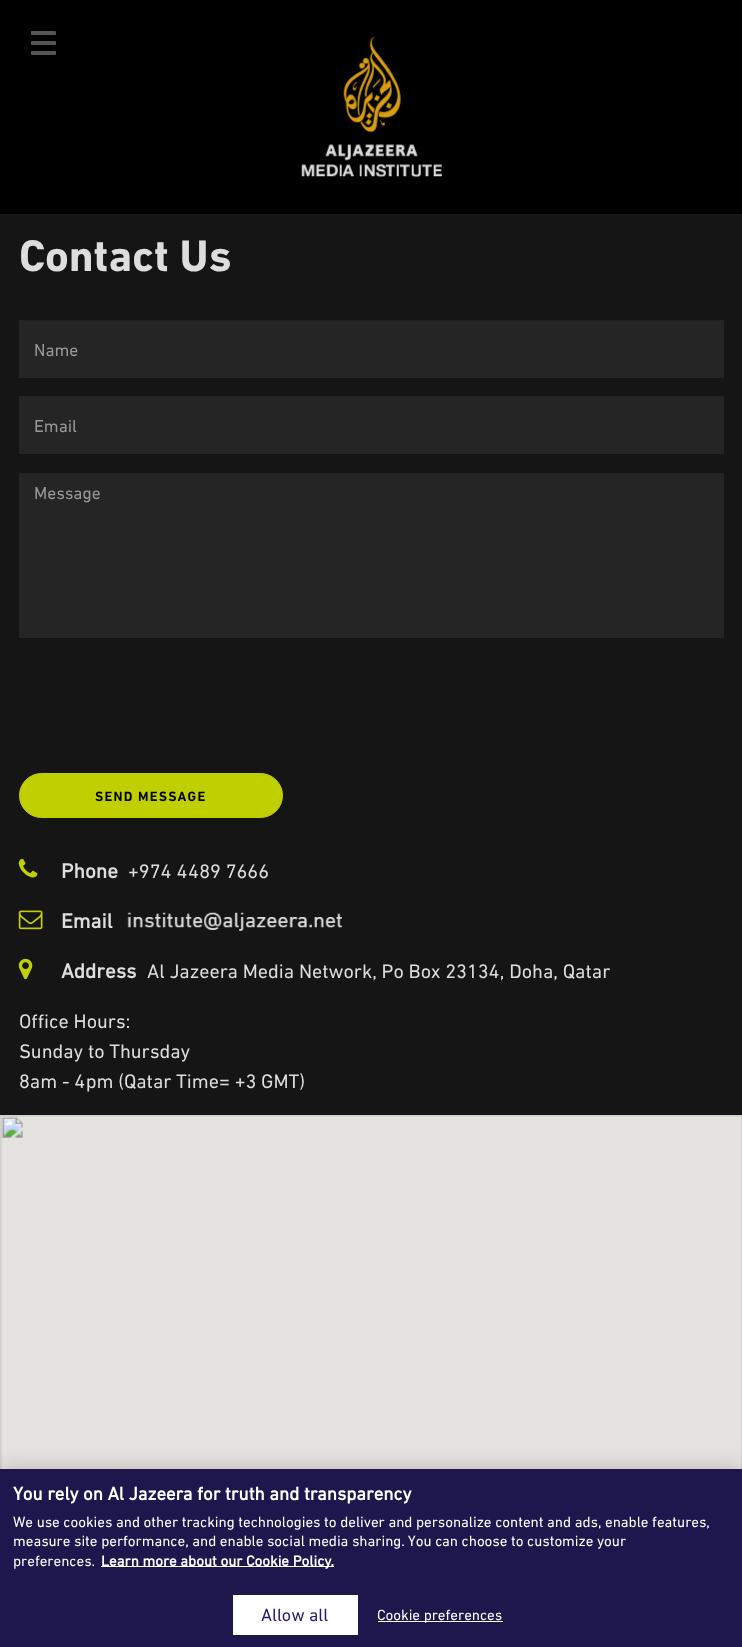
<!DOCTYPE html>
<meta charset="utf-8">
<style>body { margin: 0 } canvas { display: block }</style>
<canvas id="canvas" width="742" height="1647"></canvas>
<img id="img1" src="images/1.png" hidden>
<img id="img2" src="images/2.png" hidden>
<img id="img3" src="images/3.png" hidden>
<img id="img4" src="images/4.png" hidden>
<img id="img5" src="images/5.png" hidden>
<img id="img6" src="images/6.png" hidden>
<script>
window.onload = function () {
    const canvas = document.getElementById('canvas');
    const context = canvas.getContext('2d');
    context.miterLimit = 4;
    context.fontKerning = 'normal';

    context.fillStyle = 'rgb(0, 0, 0)';
    context.fillRect(0, 0, 742, 1647);
    context.fillStyle = 'rgb(85, 85, 85)';
    context.beginPath();
    context.roundRect(31, 31, 25, 4, 1);
    context.fill();
    context.beginPath();
    context.roundRect(31, 41, 25, 4, 1);
    context.fill();
    context.beginPath();
    context.roundRect(31, 51, 25, 4, 1);
    context.fill();
    context.drawImage(document.getElementById('img1'), 301, 36, 141, 142);
    context.fillStyle = 'rgb(21, 21, 21)';
    context.fillRect(0, 214, 742, 901);
    context.fillStyle = 'rgb(37, 37, 37)';
    context.fillRect(19, 321, 705, 57);
    context.fillStyle = 'rgb(34, 34, 34)';
    context.fillRect(19, 320, 705, 1);
    context.fillStyle = 'rgb(37, 37, 37)';
    context.fillRect(19, 397, 705, 57);
    context.fillStyle = 'rgb(34, 34, 34)';
    context.fillRect(19, 396, 705, 1);
    context.fillStyle = 'rgb(37, 37, 37)';
    context.fillRect(19, 474, 705, 164);
    context.fillStyle = 'rgb(34, 34, 34)';
    context.fillRect(19, 473, 705, 1);
    context.fillStyle = 'rgb(192, 207, 0)';
    context.beginPath();
    context.roundRect(19.5, 773.5, 263, 44, 22);
    context.fill();
    context.strokeStyle = 'rgb(192, 207, 0)';
    context.stroke();
    context.drawImage(document.getElementById('img2'), 18, 858, 20, 20);
    context.drawImage(document.getElementById('img3'), 18, 910, 25, 20);
    context.drawImage(document.getElementById('img4'), 127, 912, 215, 19);
    context.drawImage(document.getElementById('img5'), 18, 958, 15, 22);
    context.drawImage(document.getElementById('img6'), 0, 1115, 742, 354);
    context.fillStyle = 'rgba(0, 0, 0, 0.2)';
    context.filter = 'blur(11px)';
    context.beginPath();
    context.rect(0, 1469, 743, 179);
    context.fill();
    context.filter = 'none';
    context.fillStyle = 'rgb(29, 23, 78)';
    context.fillRect(0, 1469, 742, 178);
    context.fillStyle = 'rgb(255, 255, 255)';
    context.fillRect(101, 1566, 233, 1);
    context.fillRect(233, 1595, 125, 40);
    context.fillRect(378, 1621, 125, 1);
    context.font = 'bold 45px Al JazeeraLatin';
    context.fillStyle = 'rgb(221, 221, 221)';
    context.fillText('Contact Us', 19, 271);
    context.font = '17.5px Al JazeeraLatin';
    context.fillStyle = 'rgb(153, 153, 153)';
    context.fillText('Name', 34, 356);
    context.fillText('Email', 34, 432);
    context.fillText('Message', 34, 499);
    context.letterSpacing = '1.25px';
    context.font = '600 13.75px Al JazeeraLatin';
    context.fillStyle = 'rgb(0, 0, 0)';
    context.fillText('SEND MESSAGE', 95, 801);
    context.letterSpacing = '0px';
    context.font = 'bold 21px "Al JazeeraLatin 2"';
    context.fillStyle = 'rgb(221, 221, 221)';
    context.fillText('Phone', 61, 878);
    context.font = '20px Al JazeeraLatin';
    context.fillText('+974 4489 7666', 128, 878);
    context.font = 'bold 21px "Al JazeeraLatin 2"';
    context.fillText('Email', 61, 928);
    context.fillText('Address', 61, 978);
    context.font = '20px Al JazeeraLatin';
    context.fillText('Al Jazeera Media Network, Po Box 23134, Doha, Qatar', 147, 978);
    context.fillText('Office Hours:', 19, 1028);
    context.fillText('Sunday to Thursday', 19, 1058);
    context.fillText('8am - 4pm (Qatar Time= +3 GMT)', 19, 1088);
    context.font = 'bold 18.75px "Al JazeeraLatin 2"';
    context.fillStyle = 'rgb(255, 255, 255)';
    context.fillText('You rely on Al Jazeera for truth and transparency', 13, 1500);
    context.font = '15px Al JazeeraLatin';
    context.fillText('We use cookies and other tracking technologies to deliver and personalize content and ads, enable features,', 13, 1527);
    context.fillText('measure site performance, and enable social media sharing. You can choose to customize your', 13, 1546);
    context.fillText('preferences.', 13, 1566);
    context.font = 'bold 15px "Al JazeeraLatin 2"';
    context.fillText('Learn more about our Cookie Policy.', 101, 1566);
    context.font = '18px Al JazeeraLatin';
    context.fillStyle = 'rgb(35, 25, 110)';
    context.fillText('Allow all', 261, 1621);
    context.font = '15px Al JazeeraLatin';
    context.fillStyle = 'rgb(255, 255, 255)';
    context.fillText('Cookie preferences', 377, 1620);
};
</script>
